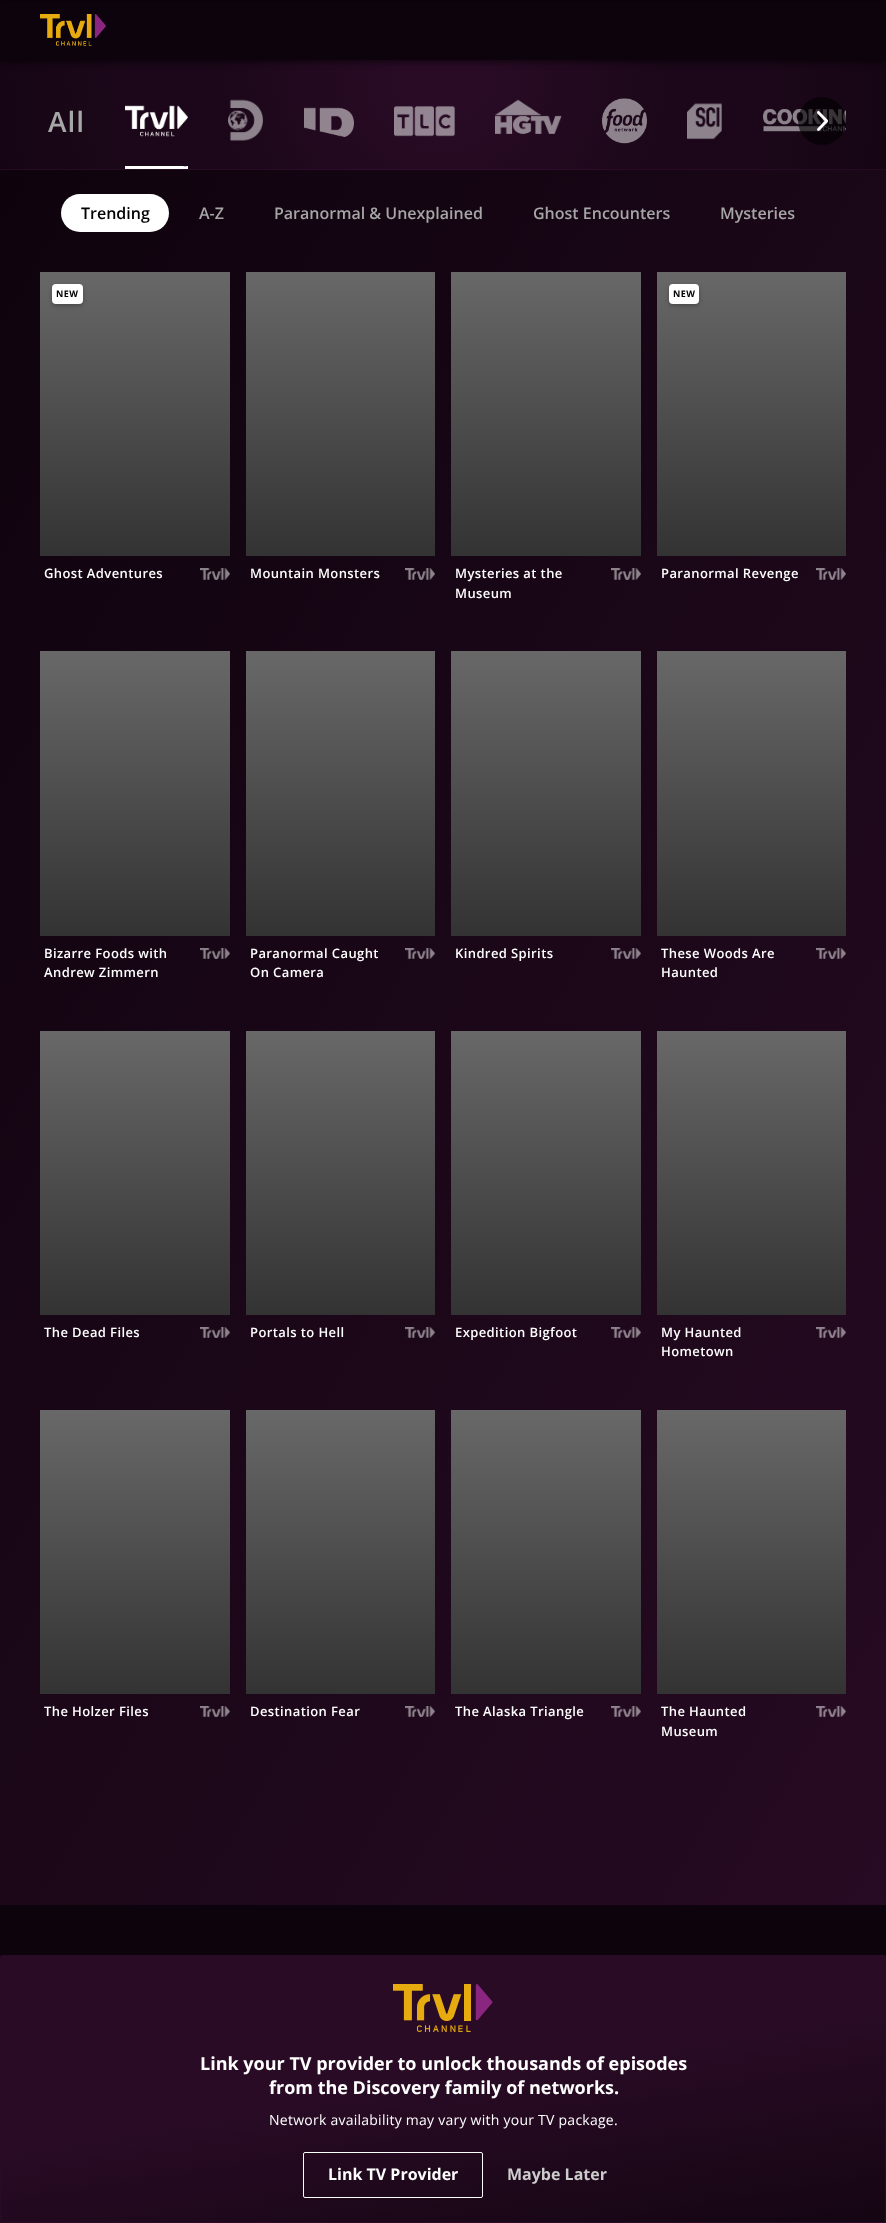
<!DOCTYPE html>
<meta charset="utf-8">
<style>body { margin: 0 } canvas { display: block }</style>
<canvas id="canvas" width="886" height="2223"></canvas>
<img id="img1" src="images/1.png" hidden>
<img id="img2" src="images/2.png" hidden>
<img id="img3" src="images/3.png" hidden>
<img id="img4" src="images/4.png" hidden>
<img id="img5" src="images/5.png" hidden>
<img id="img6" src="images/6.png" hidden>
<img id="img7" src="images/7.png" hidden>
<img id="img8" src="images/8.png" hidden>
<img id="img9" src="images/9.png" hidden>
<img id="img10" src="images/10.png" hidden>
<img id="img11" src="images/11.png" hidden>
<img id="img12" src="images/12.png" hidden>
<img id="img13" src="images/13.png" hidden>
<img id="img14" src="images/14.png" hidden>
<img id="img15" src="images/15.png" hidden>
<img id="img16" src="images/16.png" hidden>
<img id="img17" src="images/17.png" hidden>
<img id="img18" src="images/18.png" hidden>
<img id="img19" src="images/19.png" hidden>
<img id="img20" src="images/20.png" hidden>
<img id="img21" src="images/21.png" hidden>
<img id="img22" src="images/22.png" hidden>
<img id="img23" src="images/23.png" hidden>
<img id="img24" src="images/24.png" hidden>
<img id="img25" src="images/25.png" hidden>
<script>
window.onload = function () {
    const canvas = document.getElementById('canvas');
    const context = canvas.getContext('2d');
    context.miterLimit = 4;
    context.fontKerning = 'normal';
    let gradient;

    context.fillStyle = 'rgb(13, 3, 12)';
    context.fillRect(0, 0, 886, 2223);
    gradient = context.createRadialGradient(443, 73, 0, 443, 73, 635);
    gradient.addColorStop(0.06, 'rgb(41, 11, 37)');
    gradient.addColorStop(0.36, 'rgb(27, 7, 25)');
    gradient.addColorStop(0.51, 'rgb(27, 7, 25)');
    gradient.addColorStop(1, 'rgb(13, 3, 12)');
    context.fillStyle = gradient;
    context.fillRect(0, 60, 886, 109);
    context.fillStyle = 'rgba(0, 0, 0, 0.6)';
    context.filter = 'blur(3px)';
    context.beginPath();
    context.rect(0, 2, 886, 60);
    context.fill();
    context.filter = 'none';
    context.fillStyle = 'rgb(13, 3, 12)';
    context.fillRect(0, 1, 886, 59);
    context.drawImage(document.getElementById('img1'), 40, 14, 66, 32);
    gradient = context.createLinearGradient(-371, 642, 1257, 1581);
    gradient.addColorStop(0, 'rgb(13, 3, 12)');
    gradient.addColorStop(1, 'rgb(41, 11, 37)');
    context.fillStyle = gradient;
    context.fillRect(0, 170, 886, 1735);
    gradient = context.createRadialGradient(443, 265, 0, 443, 265, 635);
    gradient.addColorStop(0.06, 'rgb(53, 14, 48)');
    gradient.addColorStop(0.36, 'rgb(41, 11, 38)');
    gradient.addColorStop(0.51, 'rgb(41, 11, 38)');
    gradient.addColorStop(1, 'rgb(30, 8, 27)');
    context.fillStyle = gradient;
    context.fillRect(0, 169, 886, 1);
    context.save();
    context.beginPath();
    context.rect(125, 73, 63, 96);
    context.clip();
    context.fillStyle = 'rgb(255, 255, 255)';
    context.beginPath();
    context.moveTo(26, -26);
    context.lineTo(287, -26);
    context.lineTo(287, 268);
    context.lineTo(26, 268);
    context.closePath();
    context.moveTo(125, 68);
    context.lineTo(178, 68);
    context.bezierCurveTo(194, 68, 189, 65, 189, 85);
    context.lineTo(189, 149);
    context.bezierCurveTo(189, 169, 194, 166, 178, 166);
    context.lineTo(125, 166);
    context.lineTo(124, 165);
    context.lineTo(124, 69);
    context.closePath();
    context.fill('evenodd');
    context.restore();
    context.drawImage(document.getElementById('img2'), 125, 105, 63, 32);
    context.drawImage(document.getElementById('img3'), 228, 99, 35, 42);
    context.drawImage(document.getElementById('img4'), 304, 107, 50, 30);
    context.drawImage(document.getElementById('img5'), 394, 106, 61, 31);
    context.drawImage(document.getElementById('img6'), 495, 99, 67, 35);
    context.drawImage(document.getElementById('img7'), 602, 98, 45, 46);
    context.drawImage(document.getElementById('img8'), 687, 103, 35, 37);
    context.drawImage(document.getElementById('img9'), 763, 109, 83, 23);
    context.fillStyle = 'rgba(0, 0, 0, 0.6)';
    context.beginPath();
    context.arc(822, 121, 24, 0, 2 * Math.PI);
    context.fill();
    context.drawImage(document.getElementById('img10'), 817, 111, 11, 20);
    context.fillStyle = 'rgb(255, 255, 255)';
    context.beginPath();
    context.roundRect(61, 194, 108, 38, 19);
    context.fill();
    gradient = context.createLinearGradient(135, 272, 135, 556);
    gradient.addColorStop(0, 'rgb(104, 104, 104)');
    gradient.addColorStop(1, 'rgb(51, 51, 51)');
    context.fillStyle = gradient;
    context.fillRect(40, 272, 190, 284);
    context.fillStyle = 'rgba(0, 0, 0, 0.25)';
    context.filter = 'blur(2px)';
    context.beginPath();
    context.roundRect(52, 286, 31, 20, 4);
    context.fill();
    context.filter = 'none';
    context.fillStyle = 'rgb(255, 255, 255)';
    context.beginPath();
    context.roundRect(52, 284, 31, 20, 4);
    context.fill();
    context.drawImage(document.getElementById('img11'), 200, 568, 30, 12);
    gradient = context.createLinearGradient(341, 272, 341, 556);
    gradient.addColorStop(0, 'rgb(104, 104, 104)');
    gradient.addColorStop(1, 'rgb(51, 51, 51)');
    context.fillStyle = gradient;
    context.fillRect(246, 272, 189, 284);
    context.drawImage(document.getElementById('img12'), 405, 568, 30, 12);
    gradient = context.createLinearGradient(546, 272, 546, 556);
    gradient.addColorStop(0, 'rgb(104, 104, 104)');
    gradient.addColorStop(1, 'rgb(51, 51, 51)');
    context.fillStyle = gradient;
    context.fillRect(451, 272, 190, 284);
    context.drawImage(document.getElementById('img13'), 611, 568, 30, 12);
    gradient = context.createLinearGradient(752, 272, 752, 556);
    gradient.addColorStop(0, 'rgb(104, 104, 104)');
    gradient.addColorStop(1, 'rgb(51, 51, 51)');
    context.fillStyle = gradient;
    context.fillRect(657, 272, 189, 284);
    context.fillStyle = 'rgba(0, 0, 0, 0.25)';
    context.filter = 'blur(2px)';
    context.beginPath();
    context.roundRect(669, 286, 30, 20, 4);
    context.fill();
    context.filter = 'none';
    context.fillStyle = 'rgb(255, 255, 255)';
    context.beginPath();
    context.roundRect(669, 284, 30, 20, 4);
    context.fill();
    context.drawImage(document.getElementById('img14'), 816, 568, 30, 12);
    gradient = context.createLinearGradient(135, 651, 135, 936);
    gradient.addColorStop(0, 'rgb(104, 104, 104)');
    gradient.addColorStop(1, 'rgb(51, 51, 51)');
    context.fillStyle = gradient;
    context.fillRect(40, 651, 190, 285);
    context.drawImage(document.getElementById('img15'), 200, 948, 30, 11);
    gradient = context.createLinearGradient(341, 651, 341, 936);
    gradient.addColorStop(0, 'rgb(104, 104, 104)');
    gradient.addColorStop(1, 'rgb(51, 51, 51)');
    context.fillStyle = gradient;
    context.fillRect(246, 651, 189, 285);
    context.drawImage(document.getElementById('img16'), 405, 948, 30, 11);
    gradient = context.createLinearGradient(546, 651, 546, 936);
    gradient.addColorStop(0, 'rgb(104, 104, 104)');
    gradient.addColorStop(1, 'rgb(51, 51, 51)');
    context.fillStyle = gradient;
    context.fillRect(451, 651, 190, 285);
    context.drawImage(document.getElementById('img17'), 611, 948, 30, 11);
    gradient = context.createLinearGradient(752, 651, 752, 936);
    gradient.addColorStop(0, 'rgb(104, 104, 104)');
    gradient.addColorStop(1, 'rgb(51, 51, 51)');
    context.fillStyle = gradient;
    context.fillRect(657, 651, 189, 285);
    context.drawImage(document.getElementById('img18'), 816, 948, 30, 11);
    gradient = context.createLinearGradient(135, 1031, 135, 1315);
    gradient.addColorStop(0, 'rgb(104, 104, 104)');
    gradient.addColorStop(1, 'rgb(51, 51, 51)');
    context.fillStyle = gradient;
    context.fillRect(40, 1031, 190, 284);
    context.drawImage(document.getElementById('img19'), 200, 1327, 30, 11);
    gradient = context.createLinearGradient(341, 1031, 341, 1315);
    gradient.addColorStop(0, 'rgb(104, 104, 104)');
    gradient.addColorStop(1, 'rgb(51, 51, 51)');
    context.fillStyle = gradient;
    context.fillRect(246, 1031, 189, 284);
    context.drawImage(document.getElementById('img20'), 405, 1327, 30, 11);
    gradient = context.createLinearGradient(546, 1031, 546, 1315);
    gradient.addColorStop(0, 'rgb(104, 104, 104)');
    gradient.addColorStop(1, 'rgb(51, 51, 51)');
    context.fillStyle = gradient;
    context.fillRect(451, 1031, 190, 284);
    context.drawImage(document.getElementById('img18'), 611, 1327, 30, 11);
    gradient = context.createLinearGradient(752, 1031, 752, 1315);
    gradient.addColorStop(0, 'rgb(104, 104, 104)');
    gradient.addColorStop(1, 'rgb(51, 51, 51)');
    context.fillStyle = gradient;
    context.fillRect(657, 1031, 189, 284);
    context.drawImage(document.getElementById('img21'), 816, 1327, 30, 11);
    gradient = context.createLinearGradient(135, 1410, 135, 1694);
    gradient.addColorStop(0, 'rgb(104, 104, 104)');
    gradient.addColorStop(1, 'rgb(51, 51, 51)');
    context.fillStyle = gradient;
    context.fillRect(40, 1410, 190, 284);
    context.drawImage(document.getElementById('img22'), 200, 1706, 30, 11);
    gradient = context.createLinearGradient(341, 1410, 341, 1694);
    gradient.addColorStop(0, 'rgb(104, 104, 104)');
    gradient.addColorStop(1, 'rgb(51, 51, 51)');
    context.fillStyle = gradient;
    context.fillRect(246, 1410, 189, 284);
    context.drawImage(document.getElementById('img18'), 405, 1706, 30, 11);
    gradient = context.createLinearGradient(546, 1410, 546, 1694);
    gradient.addColorStop(0, 'rgb(104, 104, 104)');
    gradient.addColorStop(1, 'rgb(51, 51, 51)');
    context.fillStyle = gradient;
    context.fillRect(451, 1410, 190, 284);
    context.drawImage(document.getElementById('img23'), 611, 1706, 30, 11);
    gradient = context.createLinearGradient(752, 1410, 752, 1694);
    gradient.addColorStop(0, 'rgb(104, 104, 104)');
    gradient.addColorStop(1, 'rgb(51, 51, 51)');
    context.fillStyle = gradient;
    context.fillRect(657, 1410, 189, 284);
    context.drawImage(document.getElementById('img24'), 816, 1706, 30, 11);
    gradient = context.createLinearGradient(-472, 1625, -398, 2092);
    gradient.addColorStop(0.4, 'rgb(41, 11, 37)');
    gradient.addColorStop(1, 'rgb(13, 3, 12)');
    context.fillStyle = gradient;
    context.fillRect(0, 1955, 1, 1);
    gradient = context.createLinearGradient(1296, 1625, 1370, 2092);
    gradient.addColorStop(0.4, 'rgb(41, 11, 37)');
    gradient.addColorStop(1, 'rgb(13, 3, 12)');
    context.fillStyle = gradient;
    context.fillRect(885, 1955, 1, 1);
    context.fillStyle = 'rgb(10, 2, 10)';
    context.fillRect(0, 2221, 886, 2);
    gradient = context.createLinearGradient(412, 1891, 486, 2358);
    gradient.addColorStop(0.4, 'rgb(41, 11, 37)');
    gradient.addColorStop(1, 'rgb(13, 3, 12)');
    context.fillStyle = gradient;
    context.fillRect(1, 1956, 884, 266);
    gradient = context.createLinearGradient(-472, 2157, -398, 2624);
    gradient.addColorStop(0.4, 'rgb(41, 11, 37)');
    gradient.addColorStop(1, 'rgb(13, 3, 12)');
    context.fillStyle = gradient;
    context.fillRect(0, 2222, 1, 1);
    gradient = context.createLinearGradient(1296, 2157, 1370, 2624);
    gradient.addColorStop(0.4, 'rgb(41, 11, 37)');
    gradient.addColorStop(1, 'rgb(13, 3, 12)');
    context.fillStyle = gradient;
    context.fillRect(885, 2222, 1, 1);
    context.beginPath();
    context.roundRect(0.5, 1955.5, 885, 267, 1.5);
    context.strokeStyle = 'rgb(41, 11, 37)';
    context.stroke();
    context.drawImage(document.getElementById('img25'), 393, 1984, 100, 48);
    context.beginPath();
    context.roundRect(303.5, 2152.5, 179, 45, 1.5);
    context.strokeStyle = 'rgb(255, 255, 255)';
    context.stroke();
    context.letterSpacing = '1px';
    context.font = '600 28px Open Sans';
    context.fillStyle = 'rgb(166, 166, 166)';
    context.fillText('All', 48, 132);
    context.letterSpacing = '0px';
    context.font = '600 16px Open Sans';
    context.fillStyle = 'rgb(0, 0, 0)';
    context.fillText('Trending', 81, 219);
    context.fillStyle = 'rgb(166, 166, 166)';
    context.fillText('A-Z', 199, 219);
    context.fillText('Paranormal & Unexplained', 274, 219);
    context.fillText('Ghost Encounters', 533, 219);
    context.fillText('Mysteries', 720, 219);
    context.letterSpacing = '0.5px';
    context.font = 'bold 9px Open Sans';
    context.fillStyle = 'rgb(0, 0, 0)';
    context.fillText('NEW', 56, 297);
    context.letterSpacing = '0.4px';
    context.font = '600 13px Open Sans';
    context.fillStyle = 'rgb(255, 255, 255)';
    context.fillText('Ghost Adventures', 44, 578);
    context.fillText('Mountain Monsters', 250, 578);
    context.fillText('Mysteries at the', 455, 578);
    context.fillText('Museum', 455, 598);
    context.letterSpacing = '0.5px';
    context.font = 'bold 9px Open Sans';
    context.fillStyle = 'rgb(0, 0, 0)';
    context.fillText('NEW', 673, 297);
    context.letterSpacing = '0.4px';
    context.font = '600 13px Open Sans';
    context.fillStyle = 'rgb(255, 255, 255)';
    context.fillText('Paranormal Revenge', 661, 578);
    context.fillText('Bizarre Foods with', 44, 958);
    context.fillText('Andrew Zimmern', 44, 977);
    context.fillText('Paranormal Caught', 250, 958);
    context.fillText('On Camera', 250, 977);
    context.fillText('Kindred Spirits', 455, 958);
    context.fillText('These Woods Are', 661, 958);
    context.fillText('Haunted', 661, 977);
    context.fillText('The Dead Files', 44, 1337);
    context.fillText('Portals to Hell', 250, 1337);
    context.fillText('Expedition Bigfoot', 455, 1337);
    context.fillText('My Haunted', 661, 1337);
    context.fillText('Hometown', 661, 1356);
    context.fillText('The Holzer Files', 44, 1716);
    context.fillText('Destination Fear', 250, 1716);
    context.fillText('The Alaska Triangle', 455, 1716);
    context.fillText('The Haunted', 661, 1716);
    context.fillText('Museum', 661, 1736);
    context.letterSpacing = '0px';
    context.font = 'bold 18px Open Sans';
    context.fillText('Link your TV provider to unlock thousands of episodes', 200, 2070);
    context.fillText('from the Discovery family of networks.', 269, 2094);
    context.letterSpacing = '0.25px';
    context.font = '14px Open Sans';
    context.fillText('Network availability may vary with your TV package.', 269, 2125);
    context.letterSpacing = '0px';
    context.font = 'bold 16px Open Sans';
    context.fillText('Link TV Provider', 328, 2180);
    context.fillStyle = 'rgb(204, 204, 204)';
    context.fillText('Maybe Later', 507, 2180);
};
</script>
